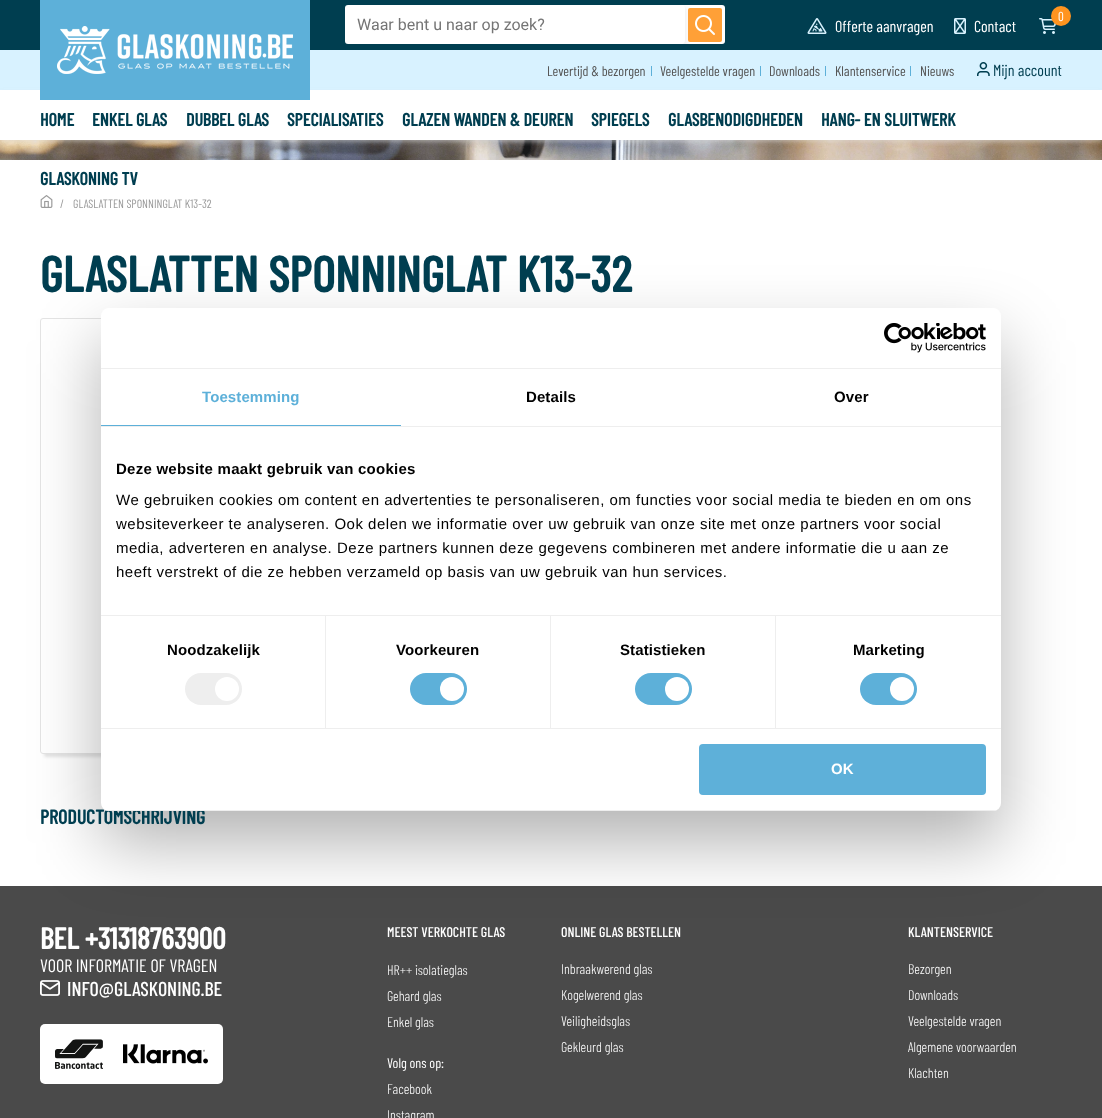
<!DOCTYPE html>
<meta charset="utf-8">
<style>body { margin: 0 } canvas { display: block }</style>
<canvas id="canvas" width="1102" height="1118"></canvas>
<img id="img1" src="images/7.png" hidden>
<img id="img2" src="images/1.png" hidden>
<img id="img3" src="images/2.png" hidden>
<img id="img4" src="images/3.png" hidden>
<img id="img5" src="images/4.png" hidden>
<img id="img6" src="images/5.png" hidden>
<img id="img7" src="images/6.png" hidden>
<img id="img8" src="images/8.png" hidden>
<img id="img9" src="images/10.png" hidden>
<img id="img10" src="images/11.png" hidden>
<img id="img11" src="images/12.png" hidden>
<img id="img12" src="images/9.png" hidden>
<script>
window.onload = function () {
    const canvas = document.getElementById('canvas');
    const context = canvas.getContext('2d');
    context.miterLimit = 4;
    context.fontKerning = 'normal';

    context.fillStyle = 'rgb(255, 255, 255)';
    context.fillRect(0, 0, 1102, 1118);
    context.fillStyle = 'rgb(0, 62, 80)';
    context.fillRect(0, 0, 1102, 50);
    context.fillStyle = 'rgb(216, 242, 255)';
    context.fillRect(0, 50, 1102, 40);
    context.drawImage(document.getElementById('img1'), 0, 140, 1102, 20);
    context.save();
    context.beginPath();
    context.moveTo(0, 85);
    context.lineTo(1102, 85);
    context.lineTo(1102, 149);
    context.lineTo(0, 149);
    context.closePath();
    context.moveTo(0, 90);
    context.lineTo(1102, 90);
    context.lineTo(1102, 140);
    context.lineTo(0, 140);
    context.closePath();
    context.clip('evenodd');
    context.fillStyle = 'rgba(228, 228, 228, 0.5)';
    context.filter = 'blur(2px)';
    context.beginPath();
    context.rect(0, 92, 1102, 50);
    context.fill();
    context.filter = 'none';
    context.restore();
    context.fillStyle = 'rgb(93, 176, 217)';
    context.fillRect(40, 0, 270, 100);
    context.drawImage(document.getElementById('img2'), 57, 26, 236, 48);
    context.fillStyle = 'rgb(255, 255, 255)';
    context.beginPath();
    context.roundRect(345, 5, 380, 39, 3);
    context.fill();
    context.save();
    context.beginPath();
    context.roundRect(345, 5, 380, 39, 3);
    context.clip();
    context.beginPath();
    context.moveTo(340, 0);
    context.lineTo(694, 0);
    context.lineTo(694, 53);
    context.lineTo(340, 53);
    context.closePath();
    context.moveTo(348, 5);
    context.lineTo(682, 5);
    context.bezierCurveTo(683.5, 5, 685, 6.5, 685, 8);
    context.lineTo(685, 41);
    context.bezierCurveTo(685, 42.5, 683.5, 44, 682, 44);
    context.lineTo(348, 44);
    context.bezierCurveTo(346.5, 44, 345, 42.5, 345, 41);
    context.lineTo(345, 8);
    context.bezierCurveTo(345, 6.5, 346.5, 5, 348, 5);
    context.closePath();
    context.clip('evenodd');
    context.fillStyle = 'rgba(228, 228, 228, 0.5)';
    context.filter = 'blur(2px)';
    context.beginPath();
    context.roundRect(347, 7, 340, 39, 3);
    context.fill();
    context.filter = 'none';
    context.restore();
    context.fillStyle = 'rgb(255, 160, 55)';
    context.beginPath();
    context.roundRect(688, 8, 34, 34, 2);
    context.fill();
    context.drawImage(document.getElementById('img3'), 695, 15, 20, 20);
    context.drawImage(document.getElementById('img4'), 1039, 18, 17, 16);
    context.fillStyle = 'rgb(255, 148, 31)';
    context.beginPath();
    context.arc(1061, 16, 10, 0, 2 * Math.PI);
    context.fill();
    context.drawImage(document.getElementById('img5'), 807, 18, 20, 16);
    context.drawImage(document.getElementById('img6'), 954, 18, 12, 16);
    context.fillStyle = 'rgb(93, 176, 217)';
    context.fillRect(651, 66, 1, 10);
    context.fillRect(760, 66, 1, 10);
    context.fillRect(825, 66, 1, 10);
    context.fillRect(910, 66, 1, 10);
    context.drawImage(document.getElementById('img7'), 977, 62, 13, 14);
    context.drawImage(document.getElementById('img8'), 40, 195, 13, 13);
    context.save();
    context.beginPath();
    context.moveTo(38, 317);
    context.lineTo(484, 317);
    context.lineTo(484, 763);
    context.lineTo(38, 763);
    context.closePath();
    context.moveTo(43, 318);
    context.lineTo(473, 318);
    context.bezierCurveTo(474.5, 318, 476, 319.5, 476, 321);
    context.lineTo(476, 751);
    context.bezierCurveTo(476, 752.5, 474.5, 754, 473, 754);
    context.lineTo(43, 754);
    context.bezierCurveTo(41.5, 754, 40, 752.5, 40, 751);
    context.lineTo(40, 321);
    context.bezierCurveTo(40, 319.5, 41.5, 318, 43, 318);
    context.closePath();
    context.clip('evenodd');
    context.fillStyle = 'rgb(228, 228, 228)';
    context.filter = 'blur(1.5px)';
    context.beginPath();
    context.roundRect(44, 323, 434, 434, 2);
    context.fill();
    context.filter = 'none';
    context.restore();
    context.beginPath();
    context.roundRect(40.5, 318.5, 435, 435, 2.5);
    context.strokeStyle = 'rgb(228, 228, 228)';
    context.stroke();
    context.fillStyle = 'rgb(74, 74, 74)';
    context.fillRect(0, 886, 1102, 232);
    context.fillStyle = 'rgba(0, 0, 0, 0.3)';
    context.filter = 'blur(34px)';
    context.beginPath();
    context.roundRect(101, 340, 900, 503, 8);
    context.fill();
    context.filter = 'none';
    context.drawImage(document.getElementById('img9'), 40, 980, 20, 16);
    context.fillStyle = 'rgb(255, 255, 255)';
    context.beginPath();
    context.roundRect(40, 1024, 183, 60, 5);
    context.fill();
    context.drawImage(document.getElementById('img10'), 55, 1039, 48, 30);
    context.drawImage(document.getElementById('img11'), 123, 1044, 85, 20);
    context.font = '16px Roboto';
    context.fillStyle = 'rgb(117, 117, 117)';
    context.fillText('Waar bent u naar op zoek?', 357, 30);
    context.font = '13px Barlow Condensed';
    context.fillStyle = 'rgb(255, 255, 255)';
    context.fillText('0', 1058, 21);
    context.font = '16px Barlow Condensed';
    context.fillText('Offerte aanvragen', 835, 32);
    context.fillText('Contact', 974, 32);
    context.font = '14px Barlow Condensed';
    context.fillStyle = 'rgb(85, 85, 85)';
    context.fillText('Levertijd & bezorgen', 547, 76);
    context.fillText('Veelgestelde vragen', 660, 76);
    context.fillText('Downloads', 769, 76);
    context.fillText('Klantenservice', 835, 76);
    context.fillText('Nieuws', 920, 76);
    context.font = '16px Barlow Condensed';
    context.fillStyle = 'rgb(0, 62, 80)';
    context.fillText('Mijn account', 993, 76);
    context.font = 'bold 18px Barlow Condensed';
    context.fillText('HOME', 40, 126);
    context.fillText('ENKEL GLAS', 92, 126);
    context.fillText('DUBBEL GLAS', 186, 126);
    context.fillText('SPECIALISATIES', 287, 126);
    context.fillText('GLAZEN WANDEN & DEUREN', 402, 126);
    context.fillText('SPIEGELS', 591, 126);
    context.fillText('GLASBENODIGDHEDEN', 668, 126);
    context.fillText('HANG- EN SLUITWERK', 821, 126);
    context.fillText('GLASKONING TV', 40, 185);
    context.font = '12px Barlow Condensed';
    context.fillStyle = 'rgb(154, 154, 154)';
    context.fillText('/', 60, 208);
    context.fillText('GLASLATTEN SPONNINGLAT K13-32', 73, 208);
    context.font = 'bold 50px Barlow Condensed';
    context.fillStyle = 'rgb(0, 62, 80)';
    context.fillText('GLASLATTEN SPONNINGLAT K13-32', 40, 292);
    context.font = 'bold 20px Barlow Condensed';
    context.fillText('PRODUCTOMSCHRIJVING', 40, 824);
    context.fillStyle = 'rgb(255, 255, 255)';
    context.beginPath();
    context.roundRect(101, 308, 900, 503, 8);
    context.fill();
    context.fillStyle = 'rgb(238, 238, 238)';
    context.fillRect(101, 368, 900, 1);
    context.drawImage(document.getElementById('img12'), 884, 323, 102, 30);
    context.fillRect(101, 426, 900, 1);
    context.fillStyle = 'rgb(93, 176, 217)';
    context.fillRect(101, 425, 300, 1);
    context.letterSpacing = '0.1px';
    context.font = 'bold 15px Liberation Sans';
    context.fillText('Toestemming', 202, 402);
    context.fillStyle = 'rgb(0, 0, 0)';
    context.fillText('Details', 526, 402);
    context.fillText('Over', 834, 402);
    context.fillStyle = 'rgb(238, 238, 238)';
    context.fillRect(101, 615, 900, 1);
    context.letterSpacing = '0.25px';
    context.fillStyle = 'rgb(0, 0, 0)';
    context.fillText('Deze website maakt gebruik van cookies', 116, 474);
    context.letterSpacing = '0.5px';
    context.font = '15px Liberation Sans';
    context.fillText('We gebruiken cookies om content en advertenties te personaliseren, om functies voor social media te bieden en om ons', 116, 505);
    context.fillText('websiteverkeer te analyseren. Ook delen we informatie over uw gebruik van onze site met onze partners voor social', 116, 529);
    context.fillText('media, adverteren en analyse. Deze partners kunnen deze gegevens combineren met andere informatie die u aan ze', 116, 553);
    context.fillText('heeft verstrekt of die ze hebben verzameld op basis van uw gebruik van hun services.', 116, 577);
    context.fillStyle = 'rgb(238, 238, 238)';
    context.fillRect(101, 728, 900, 1);
    context.fillRect(325, 616, 1, 112);
    context.letterSpacing = '0.1px';
    context.font = 'bold 15px Liberation Sans';
    context.fillStyle = 'rgb(0, 0, 0)';
    context.fillText('Noodzakelijk', 167, 655);
    context.fillStyle = 'rgb(238, 238, 238)';
    context.beginPath();
    context.roundRect(185, 673, 57, 32, 16);
    context.fill();
    context.fillStyle = 'rgb(255, 255, 255)';
    context.beginPath();
    context.arc(227, 689, 12, 0, 2 * Math.PI);
    context.fill();
    context.fillStyle = 'rgb(238, 238, 238)';
    context.fillRect(550, 616, 1, 112);
    context.fillStyle = 'rgb(0, 0, 0)';
    context.fillText('Voorkeuren', 396, 655);
    context.fillStyle = 'rgb(93, 176, 217)';
    context.beginPath();
    context.roundRect(410, 673, 57, 32, 16);
    context.fill();
    context.fillStyle = 'rgb(255, 255, 255)';
    context.beginPath();
    context.arc(452, 689, 12, 0, 2 * Math.PI);
    context.fill();
    context.fillStyle = 'rgb(238, 238, 238)';
    context.fillRect(775, 616, 1, 112);
    context.fillStyle = 'rgb(0, 0, 0)';
    context.fillText('Statistieken', 620, 655);
    context.fillStyle = 'rgb(93, 176, 217)';
    context.beginPath();
    context.roundRect(635, 673, 57, 32, 16);
    context.fill();
    context.fillStyle = 'rgb(255, 255, 255)';
    context.beginPath();
    context.arc(677, 689, 12, 0, 2 * Math.PI);
    context.fill();
    context.fillStyle = 'rgb(0, 0, 0)';
    context.fillText('Marketing', 853, 655);
    context.fillStyle = 'rgb(93, 176, 217)';
    context.beginPath();
    context.roundRect(860, 673, 57, 32, 16);
    context.fill();
    context.fillStyle = 'rgb(255, 255, 255)';
    context.beginPath();
    context.arc(902, 689, 12, 0, 2 * Math.PI);
    context.fill();
    context.save();
    context.beginPath();
    context.roundRect(101, 308, 900, 503, 8);
    context.clip();
    context.fillStyle = 'rgb(238, 238, 238)';
    context.fillRect(101, 810, 900, 1);
    context.restore();
    context.fillStyle = 'rgb(94, 176, 217)';
    context.beginPath();
    context.roundRect(700, 745, 285, 49, 3);
    context.fill();
    context.strokeStyle = 'rgb(94, 176, 217)';
    context.lineWidth = 2;
    context.stroke();
    context.letterSpacing = '0px';
    context.fillStyle = 'rgb(255, 255, 255)';
    context.fillText('OK', 831, 774);
    context.font = 'bold 30px Barlow Condensed';
    context.fillText('BEL +31318763900', 40, 949);
    context.font = '18px Barlow Condensed';
    context.fillText('VOOR INFORMATIE OF VRAGEN', 40, 972);
    context.font = '500 20px Barlow Condensed';
    context.fillText('INFO@GLASKONING.BE', 67, 996);
    context.font = '500 14px Barlow Condensed';
    context.fillText('MEEST VERKOCHTE GLAS', 387, 937);
    context.font = '300 14px Barlow Condensed';
    context.fillText('HR++ isolatieglas', 387, 975);
    context.fillText('Gehard glas', 387, 1001);
    context.fillText('Enkel glas', 387, 1027);
    context.font = '14px Barlow Condensed';
    context.fillText('Volg ons op:', 387, 1068);
    context.font = '300 14px Barlow Condensed';
    context.fillText('Facebook', 387, 1094);
    context.fillText('Instagram', 387, 1120);
    context.font = '500 14px Barlow Condensed';
    context.fillText('ONLINE GLAS BESTELLEN', 561, 937);
    context.font = '300 14px Barlow Condensed';
    context.fillText('Inbraakwerend glas', 561, 974);
    context.fillText('Kogelwerend glas', 561, 1000);
    context.fillText('Veiligheidsglas', 561, 1026);
    context.fillText('Gekleurd glas', 561, 1052);
    context.font = '500 14px Barlow Condensed';
    context.fillText('KLANTENSERVICE', 908, 937);
    context.font = '300 14px Barlow Condensed';
    context.fillText('Bezorgen', 908, 974);
    context.fillText('Downloads', 908, 1000);
    context.fillText('Veelgestelde vragen', 908, 1026);
    context.fillText('Algemene voorwaarden', 908, 1052);
    context.fillText('Klachten', 908, 1078);
};
</script>
